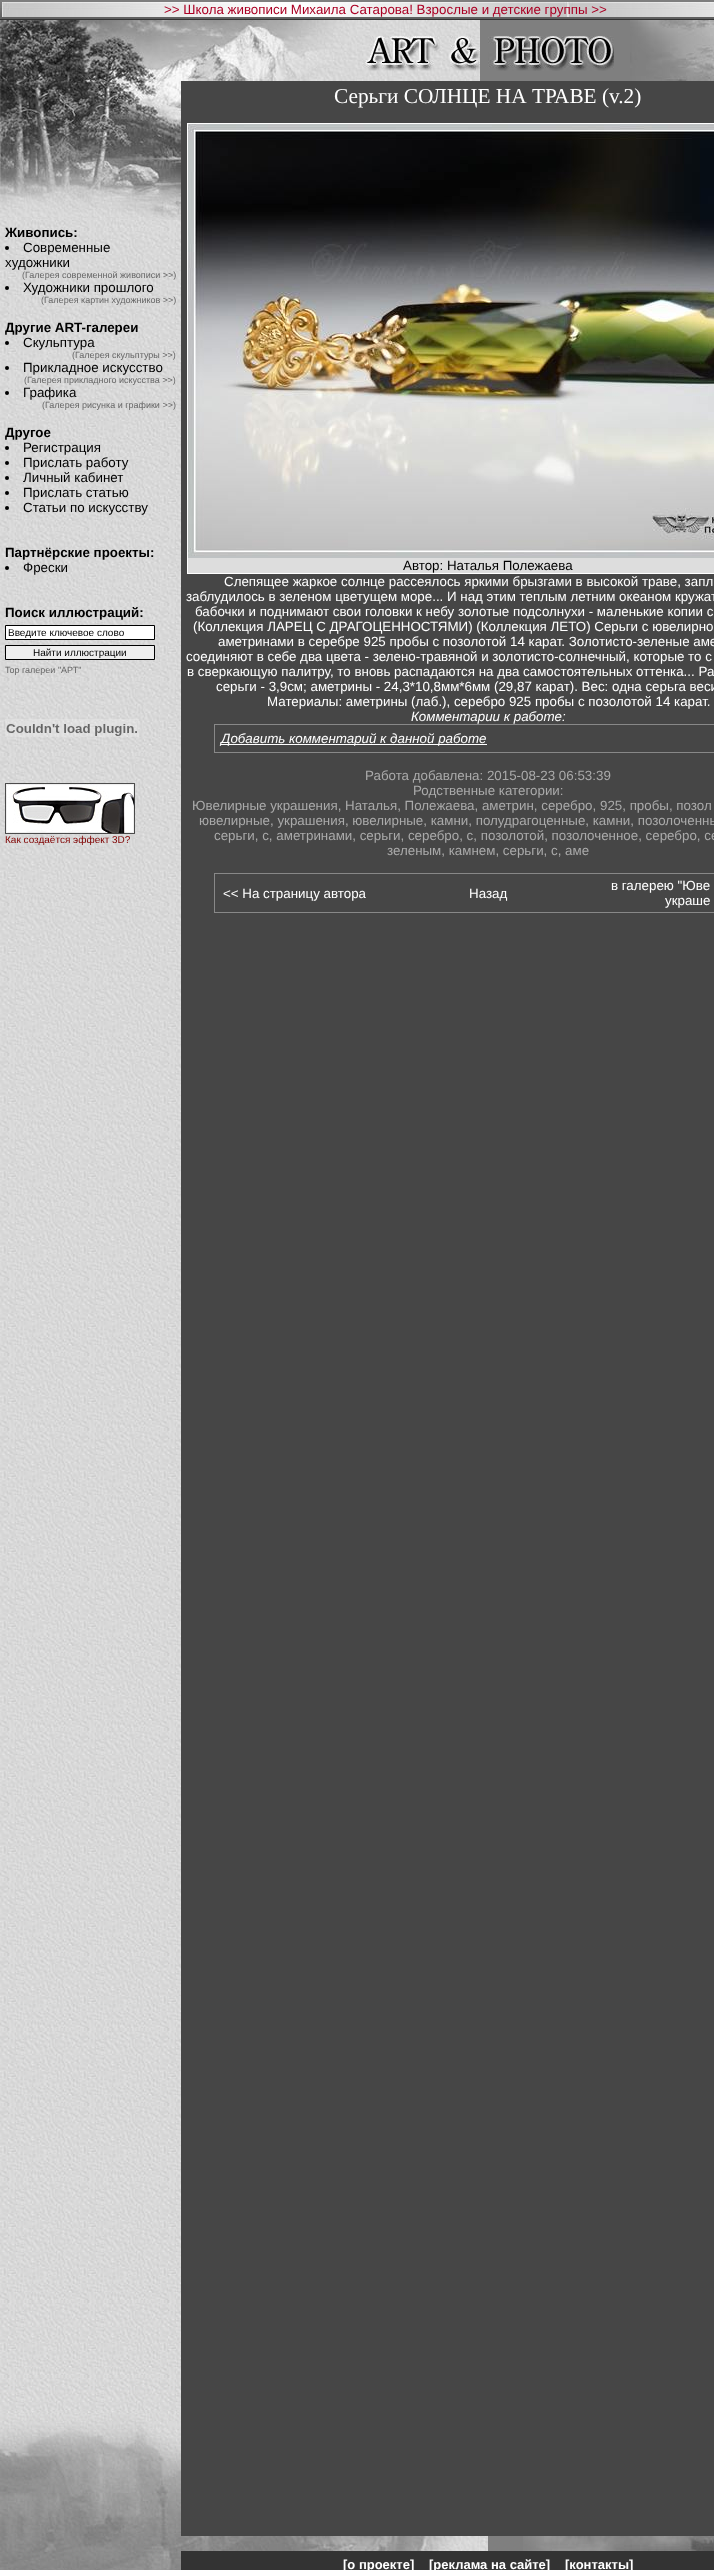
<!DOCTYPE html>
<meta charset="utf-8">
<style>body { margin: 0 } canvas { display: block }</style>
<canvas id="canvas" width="714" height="2570"></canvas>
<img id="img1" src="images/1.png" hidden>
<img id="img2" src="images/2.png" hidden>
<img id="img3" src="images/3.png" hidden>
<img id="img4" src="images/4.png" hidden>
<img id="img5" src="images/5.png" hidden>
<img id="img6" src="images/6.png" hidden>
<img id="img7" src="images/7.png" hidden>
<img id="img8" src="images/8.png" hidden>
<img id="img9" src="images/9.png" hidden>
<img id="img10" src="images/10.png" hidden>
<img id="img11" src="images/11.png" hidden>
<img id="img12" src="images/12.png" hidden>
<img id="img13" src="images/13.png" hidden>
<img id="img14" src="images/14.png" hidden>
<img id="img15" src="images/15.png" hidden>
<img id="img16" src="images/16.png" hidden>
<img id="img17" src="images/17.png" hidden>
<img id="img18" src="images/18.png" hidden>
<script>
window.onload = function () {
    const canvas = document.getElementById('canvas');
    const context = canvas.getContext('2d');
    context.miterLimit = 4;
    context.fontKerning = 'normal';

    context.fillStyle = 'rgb(51, 51, 51)';
    context.fillRect(0, 0, 714, 2570);
    context.drawImage(document.getElementById('img1'), 0, 0, 714, 19);
    context.drawImage(document.getElementById('img2'), 2, 2, 712, 15);
    context.drawImage(document.getElementById('img3'), 0, 20, 181, 61);
    context.drawImage(document.getElementById('img4'), 181, 20, 181, 61);
    context.drawImage(document.getElementById('img5'), 362, 20, 118, 61);
    context.fillStyle = 'rgb(127, 127, 127)';
    context.fillRect(480, 20, 150, 61);
    context.drawImage(document.getElementById('img6'), 488, 36, 126, 35);
    context.drawImage(document.getElementById('img7'), 630, 20, 84, 61);
    context.drawImage(document.getElementById('img8'), 0, 220, 181, 2008);
    context.drawImage(document.getElementById('img9'), 0, 81, 181, 139);
    context.fillStyle = 'rgb(0, 0, 0)';
    context.beginPath();
    context.arc(7, 248, 2, 0, 2 * Math.PI);
    context.fill();
    context.beginPath();
    context.arc(7, 288, 2, 0, 2 * Math.PI);
    context.fill();
    context.beginPath();
    context.arc(7, 343, 2, 0, 2 * Math.PI);
    context.fill();
    context.beginPath();
    context.arc(7, 368, 2, 0, 2 * Math.PI);
    context.fill();
    context.beginPath();
    context.arc(7, 393, 2, 0, 2 * Math.PI);
    context.fill();
    context.beginPath();
    context.arc(7, 448, 2, 0, 2 * Math.PI);
    context.fill();
    context.beginPath();
    context.arc(7, 463, 2, 0, 2 * Math.PI);
    context.fill();
    context.beginPath();
    context.arc(7, 478, 2, 0, 2 * Math.PI);
    context.fill();
    context.beginPath();
    context.arc(7, 493, 2, 0, 2 * Math.PI);
    context.fill();
    context.beginPath();
    context.arc(7, 508, 2, 0, 2 * Math.PI);
    context.fill();
    context.beginPath();
    context.arc(7, 568, 2, 0, 2 * Math.PI);
    context.fill();
    context.fillStyle = 'rgb(255, 255, 255)';
    context.beginPath();
    context.rect(5.5, 625.5, 149, 14);
    context.fill();
    context.strokeStyle = 'rgb(0, 0, 0)';
    context.stroke();
    context.fillStyle = 'rgb(239, 239, 239)';
    context.beginPath();
    context.rect(5.5, 645.5, 149, 14);
    context.fill();
    context.stroke();
    context.drawImage(document.getElementById('img10'), 5, 719, 134, 18);
    context.drawImage(document.getElementById('img11'), 5, 783, 130, 51);
    context.fillStyle = 'rgb(70, 70, 70)';
    context.fillRect(181, 81, 533, 2455);
    context.fillStyle = 'rgb(221, 221, 221)';
    context.fillRect(188, 558, 526, 15);
    context.strokeStyle = 'rgb(255, 255, 255)';
    context.strokeRect(187.5, 123.5, 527, 450);
    context.drawImage(document.getElementById('img12'), 188, 124, 526, 434);
    context.strokeStyle = 'rgb(136, 136, 136)';
    context.strokeRect(214.5, 724.5, 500, 28);
    context.fillStyle = 'rgb(255, 255, 255)';
    context.fillRect(221, 744, 266, 1);
    context.strokeRect(214.5, 873.5, 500, 39);
    context.drawImage(document.getElementById('img13'), 0, 2228, 181, 185);
    context.drawImage(document.getElementById('img14'), 0, 2413, 181, 123);
    context.drawImage(document.getElementById('img15'), 0, 2536, 181, 34);
    context.drawImage(document.getElementById('img16'), 480, 2536, 8, 15);
    context.drawImage(document.getElementById('img17'), 181, 2536, 299, 15);
    context.fillStyle = 'rgb(127, 127, 127)';
    context.fillRect(488, 2536, 35, 15);
    context.drawImage(document.getElementById('img18'), 523, 2536, 191, 15);
    context.font = '13.35px Liberation Sans';
    context.fillStyle = 'rgb(171, 0, 36)';
    context.fillText('>> Школа живописи Михаила Сатарова! Взрослые и детские группы >>', 164, 14);
    context.font = 'bold 13.35px Liberation Sans';
    context.fillStyle = 'rgb(0, 0, 0)';
    context.fillText('Живопись:', 5, 237);
    context.font = '13.35px Liberation Sans';
    context.fillText('Современные', 23, 252);
    context.fillText('художники', 5, 267);
    context.font = '9px Liberation Sans';
    context.fillStyle = 'rgb(102, 102, 102)';
    context.fillText('(Галерея современной живописи >>)', 22, 278);
    context.font = '13.35px Liberation Sans';
    context.fillStyle = 'rgb(0, 0, 0)';
    context.fillText('Художники прошлого', 23, 292);
    context.font = '9px Liberation Sans';
    context.fillStyle = 'rgb(102, 102, 102)';
    context.fillText('(Галерея картин художников >>)', 41, 303);
    context.font = 'bold 13.35px Liberation Sans';
    context.fillStyle = 'rgb(0, 0, 0)';
    context.fillText('Другие ART-галереи', 5, 332);
    context.font = '13.35px Liberation Sans';
    context.fillText('Скульптура', 23, 347);
    context.font = '9px Liberation Sans';
    context.fillStyle = 'rgb(102, 102, 102)';
    context.fillText('(Галерея скульптуры >>)', 72, 358);
    context.font = '13.35px Liberation Sans';
    context.fillStyle = 'rgb(0, 0, 0)';
    context.fillText('Прикладное искусство', 23, 372);
    context.font = '9px Liberation Sans';
    context.fillStyle = 'rgb(102, 102, 102)';
    context.fillText('(Галерея прикладного искусства >>)', 24, 383);
    context.font = '13.35px Liberation Sans';
    context.fillStyle = 'rgb(0, 0, 0)';
    context.fillText('Графика', 23, 397);
    context.font = '9px Liberation Sans';
    context.fillStyle = 'rgb(102, 102, 102)';
    context.fillText('(Галерея рисунка и графики >>)', 42, 408);
    context.font = 'bold 13.35px Liberation Sans';
    context.fillStyle = 'rgb(0, 0, 0)';
    context.fillText('Другое', 5, 437);
    context.font = '13.35px Liberation Sans';
    context.fillText('Регистрация', 23, 452);
    context.fillText('Прислать работу', 23, 467);
    context.fillText('Личный кабинет', 23, 482);
    context.fillText('Прислать статью', 23, 497);
    context.fillText('Статьи по искусству', 23, 512);
    context.font = 'bold 13.35px Liberation Sans';
    context.fillText('Партнёрские проекты:', 5, 557);
    context.font = '13.35px Liberation Sans';
    context.fillText('Фрески', 23, 572);
    context.font = 'bold 13.35px Liberation Sans';
    context.fillText('Поиск иллюстраций:', 5, 617);
    context.font = '10px Liberation Sans';
    context.fillText('Введите ключевое слово', 8, 636);
    context.fillText('Найти иллюстрации', 33, 656);
    context.font = '9px Liberation Sans';
    context.fillStyle = 'rgb(102, 102, 102)';
    context.fillText('Top галереи "АРТ"', 5, 673);
    context.font = '10px Liberation Sans';
    context.fillStyle = 'rgb(128, 0, 0)';
    context.fillText('Как создаётся эффект 3D?', 5, 843);
    context.font = '21.3px Liberation Serif';
    context.fillStyle = 'rgb(255, 255, 255)';
    context.fillText('Серьги СОЛНЦЕ НА ТРАВЕ (v.2)', 334, 103);
    context.font = '13.35px Liberation Sans';
    context.fillStyle = 'rgb(0, 0, 0)';
    context.fillText('Автор: Наталья Полежаева', 403, 570);
    context.fillStyle = 'rgb(255, 255, 255)';
    context.fillText('Слепящее жаркое солнце рассеялось яркими брызгами в высокой траве, запл', 224, 586);
    context.fillText('заблудилось в зеленом цветущем море... И над этим теплым летним океаном кружат', 186, 601);
    context.fillText('бабочки и поднимают свои головки к небу золотые подсолнухи - маленькие копии с', 195, 616);
    context.fillText('(Коллекция ЛАРЕЦ С ДРАГОЦЕННОСТЯМИ) (Коллекция ЛЕТО) Серьги с ювелирно', 193, 631);
    context.fillText('аметринами в серебре 925 пробы с позолотой 14 карат. Золотисто-зеленые аме', 218, 646);
    context.fillText('соединяют в себе два цвета - зелено-травяной и золотисто-солнечный, которые то с', 186, 661);
    context.fillText('в сверкающую палитру, то вновь распадаются на два самостоятельных оттенка... Ра', 187, 676);
    context.fillText('серьги - 3,9см; аметрины - 24,3*10,8мм*6мм (29,87 карат). Вес: одна серьга веси', 216, 691);
    context.fillText('Материалы: аметрины (лаб.), серебро 925 пробы с позолотой 14 карат.', 267, 706);
    context.font = 'italic 13.35px Liberation Sans';
    context.fillText('Комментарии к работе:', 411, 721);
    context.fillText('Добавить комментарий к данной работе', 221, 743);
    context.font = '13.35px Liberation Sans';
    context.fillStyle = 'rgb(170, 170, 170)';
    context.fillText('Работа добавлена: 2015-08-23 06:53:39', 365, 780);
    context.fillText('Родственные категории:', 413, 795);
    context.fillText('Ювелирные украшения, Наталья, Полежаева, аметрин, серебро, 925, пробы, позол', 192, 810);
    context.fillText('ювелирные, украшения, ювелирные, камни, полудрагоценные, камни, позолоченны', 199, 825);
    context.fillText('серьги, с, аметринами, серьги, серебро, с, позолотой, позолоченное, серебро, се', 214, 840);
    context.fillText('зеленым, камнем, серьги, с, аме', 387, 855);
    context.fillStyle = 'rgb(255, 255, 255)';
    context.fillText('<< На страницу автора', 223, 898);
    context.fillText('Назад', 469, 898);
    context.fillText('в галерею "Юве', 611, 890);
    context.fillText('украше', 665, 905);
    context.font = 'bold 13px Liberation Sans';
    context.fillText('[о проекте]', 343, 2569);
    context.fillText('[реклама на сайте]', 429, 2569);
    context.fillText('[контакты]', 565, 2569);
};
</script>
